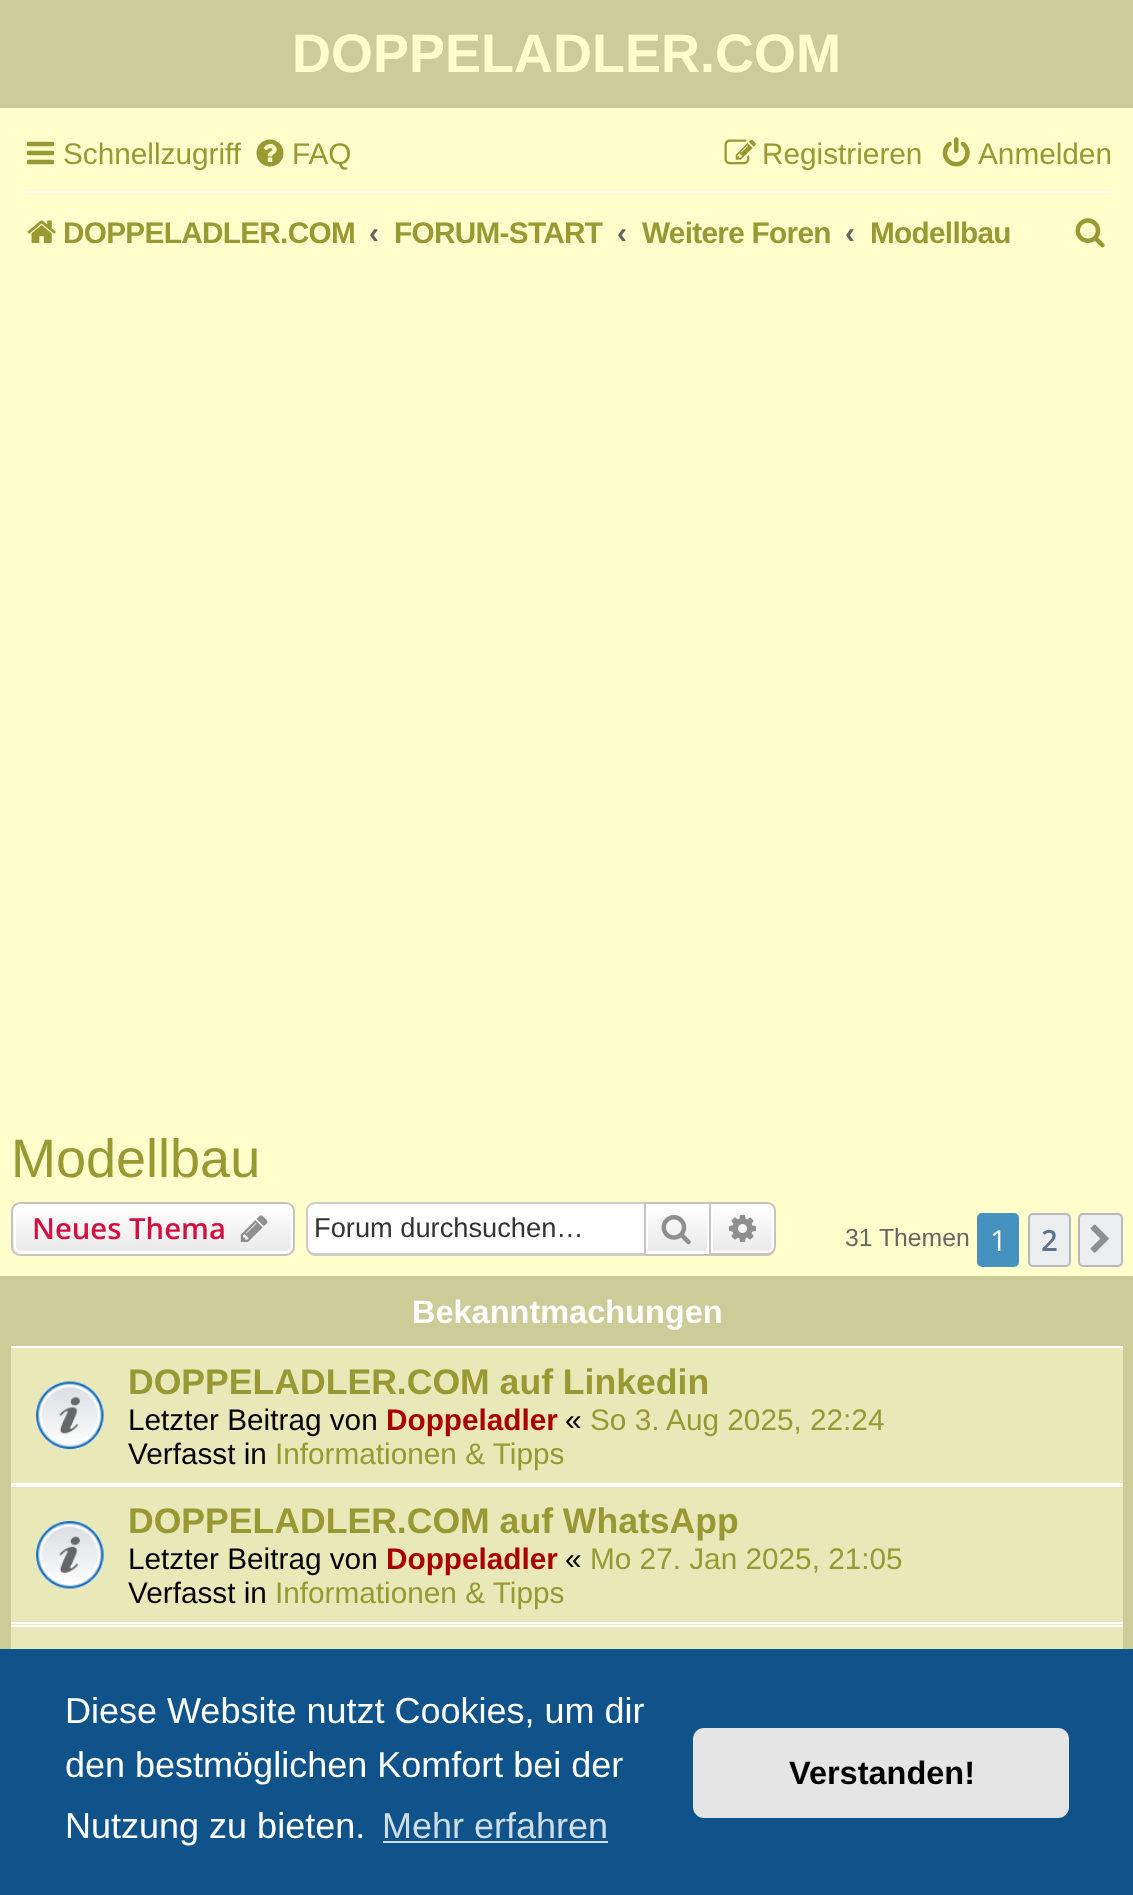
<!DOCTYPE html>
<meta charset="utf-8">
<style>body { margin: 0 } canvas { display: block }</style>
<canvas id="canvas" width="1133" height="1895"></canvas>
<img id="img1" src="images/1.png" hidden>
<img id="img2" src="images/2.png" hidden>
<img id="img3" src="images/3.png" hidden>
<img id="img4" src="images/4.png" hidden>
<img id="img5" src="images/5.png" hidden>
<img id="img6" src="images/6.png" hidden>
<img id="img7" src="images/7.png" hidden>
<img id="img8" src="images/8.png" hidden>
<img id="img9" src="images/9.png" hidden>
<img id="img10" src="images/10.png" hidden>
<img id="img11" src="images/11.png" hidden>
<img id="img12" src="images/12.png" hidden>
<script>
window.onload = function () {
    const canvas = document.getElementById('canvas');
    const context = canvas.getContext('2d');
    context.miterLimit = 4;
    context.fontKerning = 'normal';
    let gradient;

    context.fillStyle = 'rgb(255, 255, 204)';
    context.fillRect(0, 0, 1133, 1895);
    context.fillStyle = 'rgb(204, 204, 153)';
    context.fillRect(0, 0, 1133, 108);
    context.drawImage(document.getElementById('img1'), 27, 141, 27, 24);
    context.drawImage(document.getElementById('img2'), 256, 139, 28, 28);
    context.drawImage(document.getElementById('img3'), 724, 139, 32, 26);
    context.drawImage(document.getElementById('img4'), 942, 137, 28, 30);
    context.fillStyle = 'rgb(255, 255, 255)';
    context.fillRect(23, 191, 1089, 2);
    context.drawImage(document.getElementById('img5'), 27, 220, 29, 23);
    context.drawImage(document.getElementById('img6'), 1075, 218, 30, 30);
    context.save();
    context.beginPath();
    context.roundRect(11, 1202, 284, 54, 9);
    context.clip();
    gradient = context.createLinearGradient(153, 1204, 153, 1253);
    gradient.addColorStop(0, 'rgb(255, 255, 255)');
    gradient.addColorStop(1, 'rgb(233, 233, 233)');
    context.fillStyle = gradient;
    context.fillRect(11, 1204, 284, 49);
    gradient = context.createLinearGradient(153, 1253, 153, 1303);
    gradient.addColorStop(0, 'rgb(255, 255, 255)');
    gradient.addColorStop(1, 'rgb(233, 233, 233)');
    context.fillStyle = gradient;
    context.fillRect(11, 1253, 284, 3);
    context.restore();
    context.beginPath();
    context.roundRect(15, 1205, 277, 47, 6);
    context.strokeStyle = 'rgb(255, 255, 255)';
    context.lineWidth = 2;
    context.stroke();
    context.beginPath();
    context.roundRect(12, 1203, 282, 52, 8);
    context.strokeStyle = 'rgb(199, 195, 191)';
    context.stroke();
    context.drawImage(document.getElementById('img7'), 240, 1215, 28, 27);
    context.beginPath();
    context.roundRect(308, 1204, 336, 49, [7, 0, 0, 7]);
    context.fill();
    context.fillStyle = 'rgb(204, 204, 204)';
    context.beginPath();
    context.moveTo(315, 1202);
    context.lineTo(644, 1202);
    context.lineTo(644, 1256);
    context.lineTo(315, 1256);
    context.bezierCurveTo(310, 1256, 306, 1251, 306, 1246);
    context.lineTo(306, 1210);
    context.bezierCurveTo(306, 1206, 310, 1202, 315, 1202);
    context.closePath();
    context.moveTo(315, 1204);
    context.lineTo(644, 1204);
    context.lineTo(644, 1253);
    context.lineTo(315, 1253);
    context.bezierCurveTo(311, 1253, 308, 1250, 308, 1246);
    context.lineTo(308, 1210);
    context.bezierCurveTo(308, 1207, 311, 1204, 315, 1204);
    context.closePath();
    context.fill('evenodd');
    gradient = context.createLinearGradient(677, 1204, 677, 1253);
    gradient.addColorStop(0, 'rgb(255, 255, 255)');
    gradient.addColorStop(1, 'rgb(233, 233, 233)');
    context.fillStyle = gradient;
    context.fillRect(648, 1206, 59, 45);
    gradient = context.createLinearGradient(677, 1253, 677, 1303);
    gradient.addColorStop(0, 'rgb(255, 255, 255)');
    gradient.addColorStop(1, 'rgb(233, 233, 233)');
    context.fillStyle = gradient;
    context.fillRect(644, 1253, 67, 1);
    context.strokeStyle = 'rgb(255, 255, 255)';
    context.strokeRect(647, 1205, 61, 47);
    context.strokeStyle = 'rgb(199, 195, 191)';
    context.strokeRect(645, 1203, 65, 52);
    context.drawImage(document.getElementById('img8'), 661, 1215, 30, 30);
    gradient = context.createLinearGradient(743, 1204, 743, 1253);
    gradient.addColorStop(0, 'rgb(255, 255, 255)');
    gradient.addColorStop(1, 'rgb(233, 233, 233)');
    context.fillStyle = gradient;
    context.beginPath();
    context.roundRect(712, 1205, 61, 47, [0, 6, 6, 0]);
    context.fill();
    context.strokeStyle = 'rgb(255, 255, 255)';
    context.stroke();
    context.fillStyle = 'rgb(199, 195, 191)';
    context.beginPath();
    context.moveTo(711, 1202);
    context.lineTo(767, 1202);
    context.bezierCurveTo(772, 1202, 776, 1206, 776, 1210);
    context.lineTo(776, 1246);
    context.bezierCurveTo(776, 1251, 772, 1256, 767, 1256);
    context.lineTo(711, 1256);
    context.closePath();
    context.moveTo(711, 1204);
    context.lineTo(767, 1204);
    context.bezierCurveTo(771, 1204, 774, 1207, 774, 1210);
    context.lineTo(774, 1246);
    context.bezierCurveTo(774, 1250, 771, 1253, 767, 1253);
    context.lineTo(711, 1253);
    context.closePath();
    context.fill('evenodd');
    context.drawImage(document.getElementById('img9'), 729, 1215, 27, 27);
    context.fillStyle = 'rgb(70, 146, 191)';
    context.beginPath();
    context.roundRect(978, 1214, 40, 52, 4);
    context.fill();
    context.strokeStyle = 'rgb(70, 146, 191)';
    context.stroke();
    context.fillStyle = 'rgb(236, 237, 238)';
    context.beginPath();
    context.roundRect(1029, 1214, 41, 52, 4);
    context.fill();
    context.strokeStyle = 'rgb(180, 186, 192)';
    context.stroke();
    context.beginPath();
    context.roundRect(1079, 1214, 43, 52, 4);
    context.fill();
    context.stroke();
    context.drawImage(document.getElementById('img10'), 1090, 1224, 19, 29);
    context.fillStyle = 'rgb(204, 204, 153)';
    context.fillRect(0, 1276, 1133, 373);
    context.fillStyle = 'rgb(232, 232, 184)';
    context.fillRect(11, 1348, 1112, 135);
    context.fillStyle = 'rgb(255, 255, 255)';
    context.fillRect(11, 1346, 1112, 2);
    context.fillRect(11, 1483, 1112, 4);
    context.drawImage(document.getElementById('img11'), 36, 1381, 68, 69);
    context.fillStyle = 'rgb(232, 232, 184)';
    context.fillRect(11, 1487, 1112, 138);
    context.fillStyle = 'rgb(255, 255, 255)';
    context.fillRect(11, 1622, 1112, 2);
    context.drawImage(document.getElementById('img12'), 36, 1521, 68, 68);
    context.fillStyle = 'rgb(232, 232, 184)';
    context.fillRect(11, 1627, 1112, 22);
    context.fillStyle = 'rgb(255, 255, 255)';
    context.fillRect(11, 1625, 1112, 2);
    context.fillStyle = 'rgb(15, 83, 138)';
    context.fillRect(0, 1649, 1133, 246);
    context.fillStyle = 'rgb(207, 221, 232)';
    context.fillRect(383, 1841, 225, 2);
    context.fillStyle = 'rgb(229, 229, 229)';
    context.beginPath();
    context.roundRect(693, 1728, 376, 90, 11);
    context.fill();
    context.font = 'bold 54px Liberation Sans';
    context.fillStyle = 'rgb(255, 255, 204)';
    context.fillText('DOPPELADLER.COM', 292, 72);
    context.font = '29.75px Liberation Sans';
    context.fillStyle = 'rgb(153, 153, 51)';
    context.fillText('Schnellzugriff', 63, 164);
    context.fillText('FAQ', 292, 164);
    context.fillText('Registrieren', 762, 164);
    context.fillText('Anmelden', 978, 164);
    context.letterSpacing = '-0.7px';
    context.font = 'bold 29.75px Liberation Sans';
    context.fillText('DOPPELADLER.COM', 63, 243);
    context.letterSpacing = '0px';
    context.fillStyle = 'rgb(102, 102, 102)';
    context.fillText('‹', 369, 243);
    context.letterSpacing = '-0.7px';
    context.fillStyle = 'rgb(153, 153, 51)';
    context.fillText('FORUM-START', 394, 243);
    context.letterSpacing = '0px';
    context.fillStyle = 'rgb(102, 102, 102)';
    context.fillText('‹', 617, 243);
    context.letterSpacing = '-0.7px';
    context.fillStyle = 'rgb(153, 153, 51)';
    context.fillText('Weitere Foren', 642, 243);
    context.letterSpacing = '0px';
    context.fillStyle = 'rgb(102, 102, 102)';
    context.fillText('‹', 845, 243);
    context.letterSpacing = '-0.7px';
    context.fillStyle = 'rgb(153, 153, 51)';
    context.fillText('Modellbau', 870, 243);
    context.letterSpacing = '0px';
    context.font = '54px Liberation Sans';
    context.fillText('Modellbau', 11, 1177);
    context.font = '600 29.25px Open Sans';
    context.fillStyle = 'rgb(211, 17, 65)';
    context.fillText('Neues Thema', 32, 1239);
    context.font = '27.25px Liberation Sans';
    context.fillStyle = 'rgb(51, 51, 51)';
    context.fillText('Forum durchsuchen…', 314, 1237);
    context.font = '24.75px Liberation Sans';
    context.fillStyle = 'rgb(102, 102, 102)';
    context.fillText('31 Themen', 845, 1246);
    context.font = '29.25px Open Sans';
    context.fillStyle = 'rgb(255, 255, 255)';
    context.fillText('1', 990, 1251);
    context.font = '600 29.25px Open Sans';
    context.fillStyle = 'rgb(92, 117, 140)';
    context.fillText('2', 1041, 1251);
    context.font = 'bold 32.5px Liberation Sans';
    context.fillStyle = 'rgb(255, 255, 255)';
    context.fillText('Bekanntmachungen', 412, 1323);
    context.font = 'bold 35.6px Liberation Sans';
    context.fillStyle = 'rgb(153, 153, 51)';
    context.fillText('DOPPELADLER.COM auf Linkedin', 128, 1394);
    context.font = '29.75px Liberation Sans';
    context.fillStyle = 'rgb(0, 0, 0)';
    context.fillText('Letzter Beitrag von', 128, 1430);
    context.font = 'bold 29.75px Liberation Sans';
    context.fillStyle = 'rgb(170, 0, 0)';
    context.fillText('Doppeladler', 386, 1430);
    context.font = '29.75px Liberation Sans';
    context.fillStyle = 'rgb(0, 0, 0)';
    context.fillText('«', 565, 1430);
    context.fillStyle = 'rgb(153, 153, 51)';
    context.fillText('So 3. Aug 2025, 22:24', 590, 1430);
    context.fillStyle = 'rgb(0, 0, 0)';
    context.fillText('Verfasst in', 128, 1464);
    context.fillStyle = 'rgb(153, 153, 51)';
    context.fillText('Informationen & Tipps', 275, 1464);
    context.font = 'bold 35.6px Liberation Sans';
    context.fillText('DOPPELADLER.COM auf WhatsApp', 128, 1533);
    context.font = '29.75px Liberation Sans';
    context.fillStyle = 'rgb(0, 0, 0)';
    context.fillText('Letzter Beitrag von', 128, 1569);
    context.font = 'bold 29.75px Liberation Sans';
    context.fillStyle = 'rgb(170, 0, 0)';
    context.fillText('Doppeladler', 386, 1569);
    context.font = '29.75px Liberation Sans';
    context.fillStyle = 'rgb(0, 0, 0)';
    context.fillText('«', 565, 1569);
    context.fillStyle = 'rgb(153, 153, 51)';
    context.fillText('Mo 27. Jan 2025, 21:05', 590, 1569);
    context.fillStyle = 'rgb(0, 0, 0)';
    context.fillText('Verfasst in', 128, 1603);
    context.fillStyle = 'rgb(153, 153, 51)';
    context.fillText('Informationen & Tipps', 275, 1603);
    context.font = '36px Liberation Sans';
    context.fillStyle = 'rgb(255, 255, 255)';
    context.fillText('Diese Website nutzt Cookies, um dir', 65, 1723);
    context.fillText('den bestmöglichen Komfort bei der', 65, 1777);
    context.fillText('Nutzung zu bieten.', 65, 1838);
    context.fillStyle = 'rgb(207, 221, 232)';
    context.fillText('Mehr erfahren', 382, 1838);
    context.font = 'bold 32.5px Liberation Sans';
    context.fillStyle = 'rgb(0, 0, 0)';
    context.fillText('Verstanden!', 789, 1784);
};
</script>
